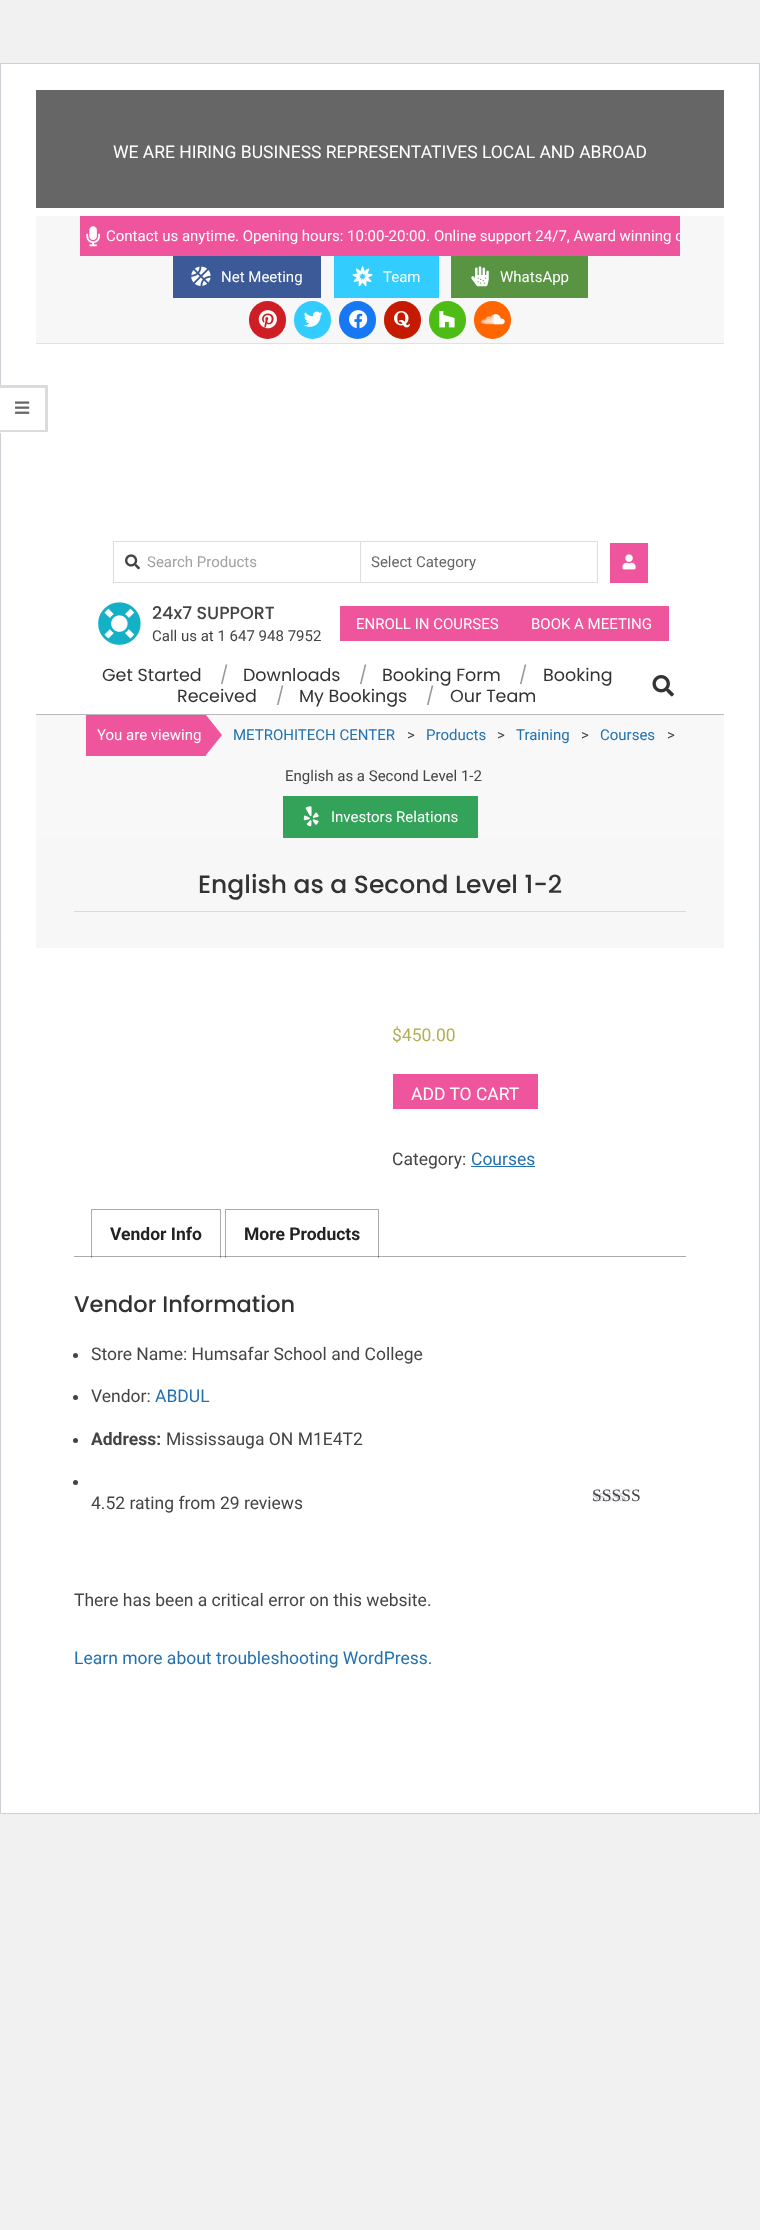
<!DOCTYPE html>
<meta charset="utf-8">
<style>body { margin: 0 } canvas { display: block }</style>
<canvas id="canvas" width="760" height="2230"></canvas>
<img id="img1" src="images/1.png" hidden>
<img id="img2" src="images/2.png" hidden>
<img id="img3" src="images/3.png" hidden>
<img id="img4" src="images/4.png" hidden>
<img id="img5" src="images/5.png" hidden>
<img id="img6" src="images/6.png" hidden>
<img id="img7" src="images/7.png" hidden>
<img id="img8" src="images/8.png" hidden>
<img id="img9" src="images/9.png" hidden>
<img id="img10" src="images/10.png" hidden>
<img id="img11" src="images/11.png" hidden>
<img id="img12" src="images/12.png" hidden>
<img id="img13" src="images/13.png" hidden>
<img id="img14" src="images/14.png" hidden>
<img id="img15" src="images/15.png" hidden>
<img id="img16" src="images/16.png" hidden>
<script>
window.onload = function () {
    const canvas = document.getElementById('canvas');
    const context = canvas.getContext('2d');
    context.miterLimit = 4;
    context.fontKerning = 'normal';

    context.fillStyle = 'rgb(241, 241, 241)';
    context.fillRect(0, 0, 760, 2230);
    context.fillStyle = 'rgb(255, 255, 255)';
    context.beginPath();
    context.rect(0.5, 63.5, 759, 1750);
    context.fill();
    context.strokeStyle = 'rgb(204, 208, 212)';
    context.stroke();
    context.fillStyle = 'rgb(102, 102, 102)';
    context.fillRect(36, 90, 688, 118);
    context.fillStyle = 'rgb(247, 247, 247)';
    context.fillRect(36, 216, 688, 127);
    context.fillStyle = 'rgb(225, 225, 225)';
    context.fillRect(36, 343, 688, 1);
    context.fillStyle = 'rgb(238, 85, 157)';
    context.fillRect(80, 216, 600, 40);
    context.drawImage(document.getElementById('img1'), 86, 226, 14, 21);
    context.fillStyle = 'rgb(60, 90, 152)';
    context.fillRect(173, 256, 148, 42);
    context.drawImage(document.getElementById('img2'), 191, 266, 20, 20);
    context.fillStyle = 'rgb(50, 204, 254)';
    context.fillRect(334, 256, 105, 42);
    context.drawImage(document.getElementById('img3'), 352, 266, 21, 21);
    context.fillStyle = 'rgb(88, 148, 66)';
    context.fillRect(451, 256, 137, 42);
    context.drawImage(document.getElementById('img4'), 471, 266, 18, 21);
    context.fillStyle = 'rgb(207, 29, 37)';
    context.beginPath();
    context.roundRect(249, 301, 37, 38, 18.5);
    context.fill();
    context.drawImage(document.getElementById('img5'), 258, 310, 19, 19);
    context.fillStyle = 'rgb(50, 204, 254)';
    context.beginPath();
    context.roundRect(294, 301, 37, 38, 18.5);
    context.fill();
    context.drawImage(document.getElementById('img6'), 304, 311, 19, 16);
    context.fillStyle = 'rgb(24, 119, 242)';
    context.beginPath();
    context.roundRect(339, 301, 37, 38, 18.5);
    context.fill();
    context.drawImage(document.getElementById('img7'), 349, 310, 19, 19);
    context.fillStyle = 'rgb(197, 26, 0)';
    context.beginPath();
    context.roundRect(384, 301, 37, 38, 18.5);
    context.fill();
    context.drawImage(document.getElementById('img8'), 394, 311, 16, 17);
    context.fillStyle = 'rgb(77, 188, 21)';
    context.beginPath();
    context.roundRect(429, 301, 37, 38, 18.5);
    context.fill();
    context.drawImage(document.getElementById('img9'), 439, 311, 16, 17);
    context.fillStyle = 'rgb(255, 102, 0)';
    context.beginPath();
    context.roundRect(474, 301, 37, 38, 18.5);
    context.fill();
    context.drawImage(document.getElementById('img10'), 481, 314, 24, 11);
    context.fillStyle = 'rgb(184, 184, 184)';
    context.fillRect(36, 714, 688, 1);
    context.strokeStyle = 'rgb(221, 221, 221)';
    context.strokeRect(113.5, 541.5, 247, 41);
    context.drawImage(document.getElementById('img11'), 125, 554, 15, 16);
    context.strokeRect(360.5, 541.5, 237, 41);
    context.fillStyle = 'rgb(238, 85, 157)';
    context.fillRect(610, 543, 38, 40);
    context.drawImage(document.getElementById('img12'), 622, 554, 14, 16);
    context.drawImage(document.getElementById('img13'), 98, 602, 43, 43);
    context.fillRect(340, 606, 329, 35);
    context.fillStyle = 'rgb(255, 255, 255)';
    context.fillRect(0, 385, 1, 48);
    context.fillStyle = 'rgb(219, 219, 219)';
    context.beginPath();
    context.moveTo(0, 385);
    context.lineTo(48, 385);
    context.lineTo(45, 388);
    context.lineTo(0, 388);
    context.closePath();
    context.fill();
    context.fillStyle = 'rgba(0, 0, 0, 0.14)';
    context.beginPath();
    context.moveTo(48, 385);
    context.lineTo(48, 432);
    context.lineTo(45, 430);
    context.lineTo(45, 388);
    context.closePath();
    context.fill();
    context.beginPath();
    context.moveTo(48, 432);
    context.lineTo(0, 432);
    context.lineTo(0, 430);
    context.lineTo(45, 430);
    context.closePath();
    context.fill();
    context.drawImage(document.getElementById('img14'), 15, 401, 15, 13);
    context.drawImage(document.getElementById('img15'), 652, 675, 22, 22);
    context.fillStyle = 'rgb(248, 248, 248)';
    context.fillRect(36, 715, 688, 123);
    context.fillStyle = 'rgb(238, 85, 157)';
    context.fillRect(86, 715, 120, 41);
    context.beginPath();
    context.moveTo(206, 755);
    context.lineTo(206, 715);
    context.lineTo(222, 735);
    context.closePath();
    context.fill();
    context.fillStyle = 'rgb(50, 163, 88)';
    context.fillRect(283, 796, 195, 42);
    context.drawImage(document.getElementById('img16'), 303, 806, 16, 21);
    context.fillStyle = 'rgb(247, 247, 247)';
    context.fillRect(36, 838, 688, 110);
    context.fillStyle = 'rgb(218, 218, 218)';
    context.fillRect(74, 911, 612, 1);
    context.fillStyle = 'rgb(238, 85, 157)';
    context.fillRect(393, 1074, 145, 35);
    context.fillStyle = 'rgb(34, 113, 177)';
    context.fillRect(471, 1166, 64, 1);
    context.fillStyle = 'rgb(171, 171, 171)';
    context.beginPath();
    context.moveTo(91, 1209);
    context.lineTo(221, 1209);
    context.lineTo(220, 1210);
    context.lineTo(92, 1210);
    context.closePath();
    context.fill();
    context.fillStyle = 'rgba(0, 0, 0, 0.33)';
    context.beginPath();
    context.moveTo(221, 1209);
    context.lineTo(221, 1258);
    context.lineTo(220, 1258);
    context.lineTo(220, 1210);
    context.closePath();
    context.fill();
    context.beginPath();
    context.moveTo(91, 1258);
    context.lineTo(91, 1209);
    context.lineTo(92, 1210);
    context.lineTo(92, 1258);
    context.closePath();
    context.fill();
    context.fillStyle = 'rgb(171, 171, 171)';
    context.beginPath();
    context.moveTo(225, 1209);
    context.lineTo(379, 1209);
    context.lineTo(378, 1210);
    context.lineTo(226, 1210);
    context.closePath();
    context.fill();
    context.fillStyle = 'rgba(0, 0, 0, 0.33)';
    context.beginPath();
    context.moveTo(379, 1209);
    context.lineTo(379, 1258);
    context.lineTo(378, 1258);
    context.lineTo(378, 1210);
    context.closePath();
    context.fill();
    context.beginPath();
    context.moveTo(225, 1258);
    context.lineTo(225, 1209);
    context.lineTo(226, 1210);
    context.lineTo(226, 1258);
    context.closePath();
    context.fill();
    context.fillRect(74, 1256, 612, 1);
    context.fillStyle = 'rgb(68, 68, 68)';
    context.beginPath();
    context.arc(75.5, 1355.5, 2.5, 0, 2 * Math.PI);
    context.fill();
    context.beginPath();
    context.arc(75.5, 1397.5, 2.5, 0, 2 * Math.PI);
    context.fill();
    context.beginPath();
    context.arc(75.5, 1440.5, 2.5, 0, 2 * Math.PI);
    context.fill();
    context.beginPath();
    context.arc(75.5, 1482.5, 2.5, 0, 2 * Math.PI);
    context.fill();
    context.font = '17.5px Roboto';
    context.fillStyle = 'rgb(255, 255, 255)';
    context.fillText('WE ARE HIRING BUSINESS REPRESENTATIVES LOCAL AND ABROAD', 113, 158);
    context.font = '15px Roboto';
    context.fillText('Contact us anytime. Opening hours: 10:00-20:00.', 106, 241);
    context.save();
    context.beginPath();
    context.rect(106, 224, 574, 25);
    context.clip();
    context.fillText('Online support 24/7, Award winning c', 434, 241);
    context.restore();
    context.fillText('Net Meeting', 221, 282);
    context.fillText('Team', 383, 282);
    context.fillText('WhatsApp', 500, 282);
    context.fillStyle = 'rgb(162, 162, 162)';
    context.fillText('Search Products', 147, 567);
    context.fillStyle = 'rgb(102, 102, 102)';
    context.fillText('Select Category', 371, 567);
    context.font = '500 17.5px Poppins';
    context.fillStyle = 'rgb(68, 68, 68)';
    context.fillText('24x7 SUPPORT', 152, 619);
    context.font = '15px Roboto';
    context.fillText('Call us at 1 647 948 7952', 152, 641);
    context.fillStyle = 'rgb(255, 255, 255)';
    context.fillText('ENROLL IN COURSES', 356, 629);
    context.fillText('BOOK A MEETING', 531, 629);
    context.font = '17.5px Poppins';
    context.fillStyle = 'rgb(51, 51, 51)';
    context.fillText('Get Started', 102, 681);
    context.fillStyle = 'rgb(153, 153, 153)';
    context.fillText('/', 220, 681);
    context.fillStyle = 'rgb(51, 51, 51)';
    context.fillText('Booking Form', 382, 681);
    context.fillStyle = 'rgb(153, 153, 153)';
    context.fillText('/', 519, 681);
    context.fillStyle = 'rgb(51, 51, 51)';
    context.fillText('Booking', 543, 681);
    context.fillText('Received', 177, 702);
    context.fillStyle = 'rgb(153, 153, 153)';
    context.fillText('/', 276, 702);
    context.fillStyle = 'rgb(51, 51, 51)';
    context.fillText('My Bookings', 299, 702);
    context.fillStyle = 'rgb(153, 153, 153)';
    context.fillText('/', 426, 702);
    context.fillStyle = 'rgb(51, 51, 51)';
    context.fillText('Downloads', 243, 681);
    context.fillStyle = 'rgb(153, 153, 153)';
    context.fillText('/', 359, 681);
    context.fillStyle = 'rgb(51, 51, 51)';
    context.fillText('Our Team', 450, 702);
    context.font = '15px Roboto';
    context.fillStyle = 'rgb(255, 255, 255)';
    context.fillText('You are viewing', 97, 740);
    context.fillStyle = 'rgb(34, 113, 177)';
    context.fillText('METROHITECH CENTER', 233, 740);
    context.fillStyle = 'rgb(68, 68, 68)';
    context.fillText('>', 407, 740);
    context.fillStyle = 'rgb(34, 113, 177)';
    context.fillText('Products', 426, 740);
    context.fillStyle = 'rgb(68, 68, 68)';
    context.fillText('>', 497, 740);
    context.fillStyle = 'rgb(34, 113, 177)';
    context.fillText('Training', 516, 740);
    context.fillStyle = 'rgb(68, 68, 68)';
    context.fillText('>', 581, 740);
    context.fillStyle = 'rgb(34, 113, 177)';
    context.fillText('Courses', 600, 740);
    context.fillStyle = 'rgb(68, 68, 68)';
    context.fillText('>', 667, 740);
    context.fillText('English as a Second Level 1-2', 285, 781);
    context.fillStyle = 'rgb(255, 255, 255)';
    context.fillText('Investors Relations', 331, 822);
    context.font = '500 25px Poppins';
    context.fillStyle = 'rgb(51, 51, 51)';
    context.fillText('English as a Second Level 1-2', 198, 893);
    context.font = '17.5px Roboto';
    context.fillStyle = 'rgb(179, 175, 84)';
    context.fillText('$450.00', 392, 1041);
    context.fillStyle = 'rgb(255, 255, 255)';
    context.fillText('ADD TO CART', 411, 1100);
    context.fillStyle = 'rgb(68, 68, 68)';
    context.fillText('Category:', 392, 1165);
    context.fillStyle = 'rgb(34, 113, 177)';
    context.fillText('Courses', 471, 1165);
    context.font = 'bold 17.5px Roboto';
    context.fillStyle = 'rgb(34, 34, 34)';
    context.fillText('Vendor Info', 110, 1240);
    context.fillText('More Products', 244, 1240);
    context.font = '500 22.5px Poppins';
    context.fillStyle = 'rgb(51, 51, 51)';
    context.fillText('Vendor Information', 74, 1312);
    context.font = '17.5px Roboto';
    context.fillStyle = 'rgb(68, 68, 68)';
    context.fillText('Store Name: Humsafar School and College', 91, 1360);
    context.fillText('Vendor:', 91, 1402);
    context.fillStyle = 'rgb(34, 113, 177)';
    context.fillText('ABDUL', 155, 1402);
    context.font = 'bold 17.5px Roboto';
    context.fillStyle = 'rgb(68, 68, 68)';
    context.fillText('Address:', 91, 1445);
    context.font = '17.5px Roboto';
    context.fillText('Mississauga ON M1E4T2', 166, 1445);
    context.fillText('4.52 rating from 29 reviews', 91, 1509);
    context.font = '17.5px Liberation Serif';
    context.fillStyle = 'rgb(207, 200, 216)';
    context.fillText('sssss', 592, 1501);
    context.fillStyle = 'rgb(68, 68, 68)';
    context.fillText('SSSSS', 592, 1501);
    context.font = '17.5px Roboto';
    context.fillText('There has been a critical error on this website.', 74, 1606);
    context.fillStyle = 'rgb(34, 113, 177)';
    context.fillText('Learn more about troubleshooting WordPress.', 74, 1664);
};
</script>
